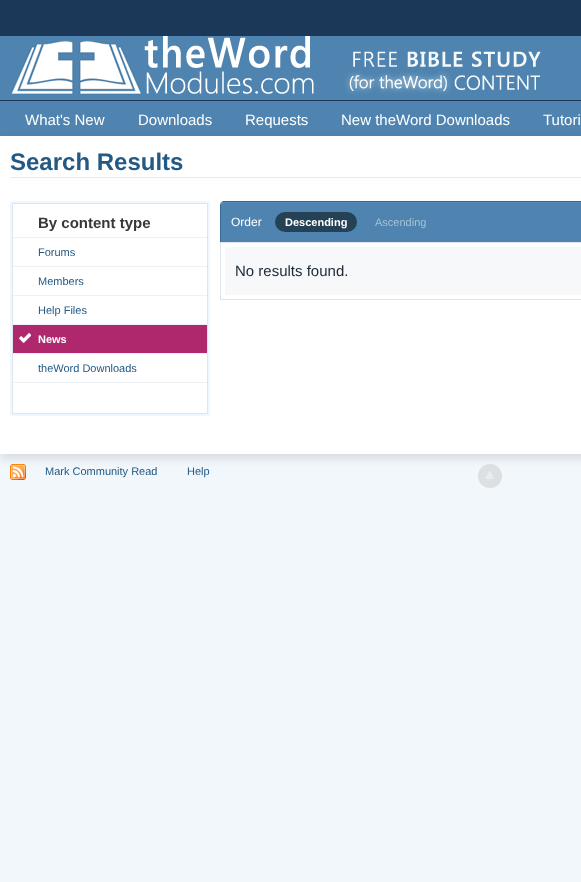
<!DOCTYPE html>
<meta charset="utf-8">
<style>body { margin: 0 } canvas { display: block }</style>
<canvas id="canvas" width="581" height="882"></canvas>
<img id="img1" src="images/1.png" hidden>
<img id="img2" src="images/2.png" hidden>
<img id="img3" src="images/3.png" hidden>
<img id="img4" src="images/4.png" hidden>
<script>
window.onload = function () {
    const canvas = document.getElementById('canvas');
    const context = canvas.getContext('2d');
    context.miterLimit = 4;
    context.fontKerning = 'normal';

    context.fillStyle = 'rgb(242, 247, 252)';
    context.fillRect(0, 0, 581, 882);
    context.fillStyle = 'rgb(28, 56, 89)';
    context.fillRect(0, 0, 581, 36);
    context.fillStyle = 'rgb(78, 132, 175)';
    context.fillRect(0, 36, 581, 64);
    context.fillStyle = 'rgb(27, 55, 89)';
    context.fillRect(0, 100, 581, 1);
    context.drawImage(document.getElementById('img1'), 11, 36, 530, 59);
    context.fillStyle = 'rgb(78, 132, 175)';
    context.fillRect(0, 101, 581, 35);
    context.fillStyle = 'rgba(0, 0, 0, 0.1)';
    context.filter = 'blur(4.5px)';
    context.beginPath();
    context.rect(0, 141, 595, 318);
    context.fill();
    context.filter = 'none';
    context.fillStyle = 'rgb(255, 255, 255)';
    context.fillRect(0, 136, 581, 318);
    context.fillStyle = 'rgb(233, 233, 233)';
    context.fillRect(10, 177, 571, 1);
    context.fillStyle = 'rgb(239, 247, 255)';
    context.fillRect(10, 201, 200, 215);
    context.fillStyle = 'rgb(255, 255, 255)';
    context.beginPath();
    context.rect(12.5, 203.5, 195, 210);
    context.fill();
    context.strokeStyle = 'rgb(219, 228, 239)';
    context.stroke();
    context.fillStyle = 'rgb(237, 241, 245)';
    context.fillRect(13, 237, 194, 1);
    context.fillRect(13, 266, 194, 1);
    context.fillRect(13, 295, 194, 1);
    context.fillRect(13, 324, 194, 1);
    context.fillRect(13, 353, 194, 1);
    context.fillStyle = 'rgb(175, 40, 109)';
    context.fillRect(13, 325, 194, 28);
    context.drawImage(document.getElementById('img2'), 19, 333, 12, 10);
    context.fillStyle = 'rgb(237, 241, 245)';
    context.fillRect(13, 382, 194, 1);
    context.fillStyle = 'rgb(78, 132, 175)';
    context.beginPath();
    context.moveTo(224, 202);
    context.lineTo(581, 202);
    context.bezierCurveTo(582.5, 202, 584, 203.5, 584, 205);
    context.lineTo(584, 242);
    context.lineTo(221, 242);
    context.lineTo(221, 205);
    context.bezierCurveTo(221, 203.5, 222.5, 202, 224, 202);
    context.closePath();
    context.fill();
    context.fillStyle = 'rgb(82, 140, 188)';
    context.beginPath();
    context.moveTo(224, 203);
    context.lineTo(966, 203);
    context.bezierCurveTo(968, 203, 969, 204, 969, 206);
    context.bezierCurveTo(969, 204, 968, 202, 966, 202);
    context.lineTo(224, 202);
    context.bezierCurveTo(222, 202, 221, 204, 221, 206);
    context.bezierCurveTo(221, 204, 222, 203, 224, 203);
    context.closePath();
    context.fill();
    context.fillStyle = 'rgb(49, 104, 151)';
    context.beginPath();
    context.moveTo(224, 201);
    context.lineTo(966, 201);
    context.bezierCurveTo(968, 201, 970, 203, 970, 205);
    context.lineTo(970, 242);
    context.lineTo(220, 242);
    context.lineTo(220, 205);
    context.bezierCurveTo(220, 203, 222, 201, 224, 201);
    context.closePath();
    context.moveTo(224, 202);
    context.lineTo(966, 202);
    context.bezierCurveTo(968, 202, 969, 203, 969, 205);
    context.lineTo(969, 242);
    context.lineTo(221, 242);
    context.lineTo(221, 205);
    context.bezierCurveTo(221, 203, 222, 202, 224, 202);
    context.closePath();
    context.fill('evenodd');
    context.fillStyle = 'rgb(36, 65, 86)';
    context.beginPath();
    context.roundRect(275, 212, 82, 20, 10);
    context.fill();
    context.strokeRect(220.5, 242.5, 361, 57);
    context.fillStyle = 'rgb(246, 248, 250)';
    context.fillRect(225, 247, 356, 48);
    context.drawImage(document.getElementById('img3'), 10, 464, 16, 16);
    context.fillStyle = 'rgba(189, 189, 189, 0.4)';
    context.beginPath();
    context.arc(490, 476, 12, 0, 2 * Math.PI);
    context.fill();
    context.drawImage(document.getElementById('img4'), 485, 471, 9, 8);
    context.font = '15px Liberation Sans';
    context.fillStyle = 'rgb(255, 255, 255)';
    context.fillText('What\'s New', 25, 125);
    context.fillText('Downloads', 138, 125);
    context.fillText('Requests', 245, 125);
    context.fillText('New theWord Downloads', 341, 125);
    context.fillText('Tutori', 543, 125);
    context.font = 'bold 24px Liberation Sans';
    context.fillStyle = 'rgb(34, 89, 133)';
    context.fillText('Search Results', 10, 170);
    context.font = 'bold 15px Liberation Sans';
    context.fillStyle = 'rgb(56, 56, 56)';
    context.fillText('By content type', 38, 228);
    context.font = '11px Liberation Sans';
    context.fillStyle = 'rgb(34, 89, 133)';
    context.fillText('Forums', 38, 256);
    context.fillText('Members', 38, 285);
    context.fillText('Help Files', 38, 314);
    context.font = 'bold 11px Liberation Sans';
    context.fillStyle = 'rgb(255, 255, 255)';
    context.fillText('News', 38, 343);
    context.font = '11px Liberation Sans';
    context.fillStyle = 'rgb(34, 89, 133)';
    context.fillText('theWord Downloads', 38, 372);
    context.font = '12px Liberation Sans';
    context.fillStyle = 'rgb(255, 255, 255)';
    context.fillText('Order', 231, 226);
    context.font = 'bold 11px Liberation Sans';
    context.fillText('Descending', 285, 226);
    context.font = '11px Liberation Sans';
    context.fillStyle = 'rgb(167, 194, 215)';
    context.fillText('Ascending', 375, 226);
    context.font = '15px Liberation Sans';
    context.fillStyle = 'rgb(28, 40, 55)';
    context.fillText('No results found.', 235, 276);
    context.font = '11px Liberation Sans';
    context.fillStyle = 'rgb(34, 89, 133)';
    context.fillText('Mark Community Read', 45, 475);
    context.fillText('Help', 187, 475);
};
</script>
